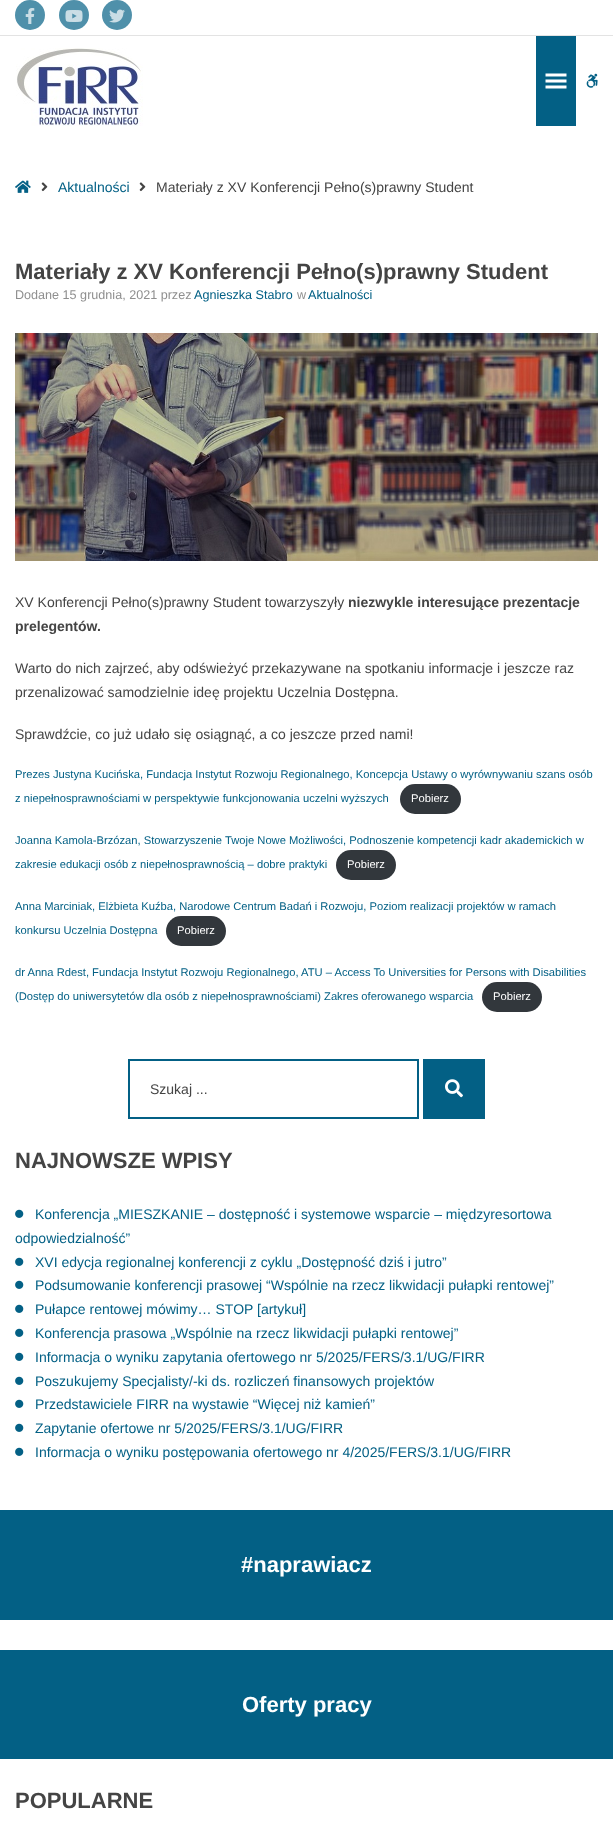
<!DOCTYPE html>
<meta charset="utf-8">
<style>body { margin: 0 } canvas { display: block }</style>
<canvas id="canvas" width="613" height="1841"></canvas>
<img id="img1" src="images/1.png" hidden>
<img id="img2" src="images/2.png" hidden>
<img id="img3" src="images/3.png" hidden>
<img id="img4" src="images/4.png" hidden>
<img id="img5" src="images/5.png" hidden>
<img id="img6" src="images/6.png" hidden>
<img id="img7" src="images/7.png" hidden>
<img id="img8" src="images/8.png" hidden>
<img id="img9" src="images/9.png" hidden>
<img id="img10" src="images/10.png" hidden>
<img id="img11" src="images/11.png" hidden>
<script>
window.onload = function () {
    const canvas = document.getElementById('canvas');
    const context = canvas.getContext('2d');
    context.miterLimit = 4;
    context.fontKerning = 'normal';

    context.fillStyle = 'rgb(255, 255, 255)';
    context.fillRect(0, 0, 613, 1841);
    context.fillStyle = 'rgb(227, 227, 227)';
    context.fillRect(0, 35, 613, 1);
    context.fillStyle = 'rgb(79, 144, 170)';
    context.beginPath();
    context.arc(30, 15, 15, 0, 2 * Math.PI);
    context.fill();
    context.drawImage(document.getElementById('img1'), 25, 8, 10, 16);
    context.beginPath();
    context.arc(74, 15, 15, 0, 2 * Math.PI);
    context.fill();
    context.drawImage(document.getElementById('img2'), 65, 10, 18, 12);
    context.beginPath();
    context.arc(117, 15, 15, 0, 2 * Math.PI);
    context.fill();
    context.drawImage(document.getElementById('img3'), 109, 9, 16, 14);
    context.drawImage(document.getElementById('img4'), 16, 48, 127, 78);
    context.fillStyle = 'rgb(3, 96, 133)';
    context.fillRect(536, 36, 40, 90);
    context.drawImage(document.getElementById('img5'), 545, 73, 22, 16);
    context.drawImage(document.getElementById('img6'), 586, 73, 12, 15);
    context.drawImage(document.getElementById('img7'), 15, 180, 16, 13);
    context.drawImage(document.getElementById('img8'), 41, 182, 7, 10);
    context.drawImage(document.getElementById('img8'), 139, 182, 7, 10);
    context.drawImage(document.getElementById('img9'), 15, 333, 583, 228);
    context.fillStyle = 'rgb(50, 55, 60)';
    context.beginPath();
    context.roundRect(400, 784, 61, 30, 15);
    context.fill();
    context.beginPath();
    context.roundRect(336, 850, 60, 30, 15);
    context.fill();
    context.beginPath();
    context.roundRect(166, 916, 60, 30, 15);
    context.fill();
    context.beginPath();
    context.roundRect(482, 982, 60, 30, 15);
    context.fill();
    context.strokeStyle = 'rgb(3, 96, 133)';
    context.lineWidth = 2;
    context.strokeRect(129, 1060, 289, 58);
    context.fillStyle = 'rgb(3, 96, 133)';
    context.fillRect(423, 1059, 62, 60);
    context.drawImage(document.getElementById('img10'), 445, 1079, 18, 19);
    context.drawImage(document.getElementById('img11'), 15, 1209, 9, 9);
    context.drawImage(document.getElementById('img11'), 15, 1257, 9, 9);
    context.drawImage(document.getElementById('img11'), 15, 1280, 9, 9);
    context.drawImage(document.getElementById('img11'), 15, 1304, 9, 9);
    context.drawImage(document.getElementById('img11'), 15, 1328, 9, 9);
    context.drawImage(document.getElementById('img11'), 15, 1352, 9, 9);
    context.drawImage(document.getElementById('img11'), 15, 1376, 9, 9);
    context.drawImage(document.getElementById('img11'), 15, 1399, 9, 9);
    context.drawImage(document.getElementById('img11'), 15, 1423, 9, 9);
    context.drawImage(document.getElementById('img11'), 15, 1447, 9, 9);
    context.fillRect(0, 1510, 613, 110);
    context.fillRect(0, 1650, 613, 109);
    context.font = '14px Liberation Sans';
    context.fillText('Aktualności', 58, 192);
    context.fillStyle = 'rgb(68, 68, 68)';
    context.fillText('Materiały z XV Konferencji Pełno(s)prawny Student', 156, 192);
    context.font = 'bold 22px Liberation Sans';
    context.fillText('Materiały z XV Konferencji Pełno(s)prawny Student', 15, 279);
    context.font = '12.6px Liberation Sans';
    context.fillStyle = 'rgb(143, 143, 143)';
    context.fillText('Dodane 15 grudnia, 2021 przez', 15, 299);
    context.fillStyle = 'rgb(3, 96, 133)';
    context.fillText('Agnieszka Stabro', 194, 299);
    context.fillStyle = 'rgb(143, 143, 143)';
    context.fillText('w', 297, 299);
    context.fillStyle = 'rgb(3, 96, 133)';
    context.fillText('Aktualności', 308, 299);
    context.font = '14px Liberation Sans';
    context.fillStyle = 'rgb(68, 68, 68)';
    context.fillText('XV Konferencji Pełno(s)prawny Student towarzyszyły', 15, 607);
    context.font = 'bold 14px Liberation Sans';
    context.fillText('niezwykle interesujące prezentacje', 348, 607);
    context.fillText('prelegentów.', 15, 631);
    context.font = '14px Liberation Sans';
    context.fillText('Warto do nich zajrzeć, aby odświeżyć przekazywane na spotkaniu informacje i jeszcze raz', 15, 673);
    context.fillText('przenalizować samodzielnie ideę projektu Uczelnia Dostępna.', 15, 697);
    context.fillText('Sprawdźcie, co już udało się osiągnąć, a co jeszcze przed nami!', 15, 739);
    context.font = '11.2px Liberation Sans';
    context.fillStyle = 'rgb(3, 96, 133)';
    context.fillText('Prezes Justyna Kucińska, Fundacja Instytut Rozwoju Regionalnego, Koncepcja Ustawy o wyrównywaniu szans osób', 15, 778);
    context.fillText('z niepełnosprawnościami w perspektywie funkcjonowania uczelni wyższych', 15, 802);
    context.fillStyle = 'rgb(255, 255, 255)';
    context.fillText('Pobierz', 411, 802);
    context.fillStyle = 'rgb(3, 96, 133)';
    context.fillText('Joanna Kamola-Brzózan, Stowarzyszenie Twoje Nowe Możliwości, Podnoszenie kompetencji kadr akademickich w', 15, 844);
    context.fillText('zakresie edukacji osób z niepełnosprawnością – dobre praktyki', 15, 868);
    context.fillStyle = 'rgb(255, 255, 255)';
    context.fillText('Pobierz', 347, 868);
    context.fillStyle = 'rgb(3, 96, 133)';
    context.fillText('Anna Marciniak, Elżbieta Kuźba, Narodowe Centrum Badań i Rozwoju, Poziom realizacji projektów w ramach', 15, 910);
    context.fillText('konkursu Uczelnia Dostępna', 15, 934);
    context.fillStyle = 'rgb(255, 255, 255)';
    context.fillText('Pobierz', 177, 934);
    context.fillStyle = 'rgb(3, 96, 133)';
    context.fillText('dr Anna Rdest, Fundacja Instytut Rozwoju Regionalnego, ATU – Access To Universities for Persons with Disabilities', 15, 976);
    context.fillText('(Dostęp do uniwersytetów dla osób z niepełnosprawnościami) Zakres oferowanego wsparcia', 15, 1000);
    context.fillStyle = 'rgb(255, 255, 255)';
    context.fillText('Pobierz', 493, 1000);
    context.font = '14px Liberation Sans';
    context.fillStyle = 'rgb(68, 68, 68)';
    context.fillText('Szukaj ...', 150, 1094);
    context.font = 'bold 22px Liberation Sans';
    context.fillText('NAJNOWSZE WPISY', 15, 1168);
    context.font = '14px Liberation Sans';
    context.fillStyle = 'rgb(3, 96, 133)';
    context.fillText('Konferencja „MIESZKANIE – dostępność i systemowe wsparcie – międzyresortowa', 35, 1219);
    context.fillText('odpowiedzialność”', 15, 1243);
    context.fillText('XVI edycja regionalnej konferencji z cyklu „Dostępność dziś i jutro”', 35, 1267);
    context.fillText('Podsumowanie konferencji prasowej “Wspólnie na rzecz likwidacji pułapki rentowej”', 35, 1290);
    context.fillText('Pułapce rentowej mówimy… STOP [artykuł]', 35, 1314);
    context.fillText('Konferencja prasowa „Wspólnie na rzecz likwidacji pułapki rentowej”', 35, 1338);
    context.fillText('Informacja o wyniku zapytania ofertowego nr 5/2025/FERS/3.1/UG/FIRR', 35, 1362);
    context.fillText('Poszukujemy Specjalisty/-ki ds. rozliczeń finansowych projektów', 35, 1386);
    context.fillText('Przedstawiciele FIRR na wystawie “Więcej niż kamień”', 35, 1409);
    context.fillText('Zapytanie ofertowe nr 5/2025/FERS/3.1/UG/FIRR', 35, 1433);
    context.fillText('Informacja o wyniku postępowania ofertowego nr 4/2025/FERS/3.1/UG/FIRR', 35, 1457);
    context.font = 'bold 22px Liberation Sans';
    context.fillStyle = 'rgb(255, 255, 255)';
    context.fillText('#naprawiacz', 241, 1572);
    context.fillText('Oferty pracy', 242, 1712);
    context.fillStyle = 'rgb(68, 68, 68)';
    context.fillText('POPULARNE', 15, 1808);
};
</script>
